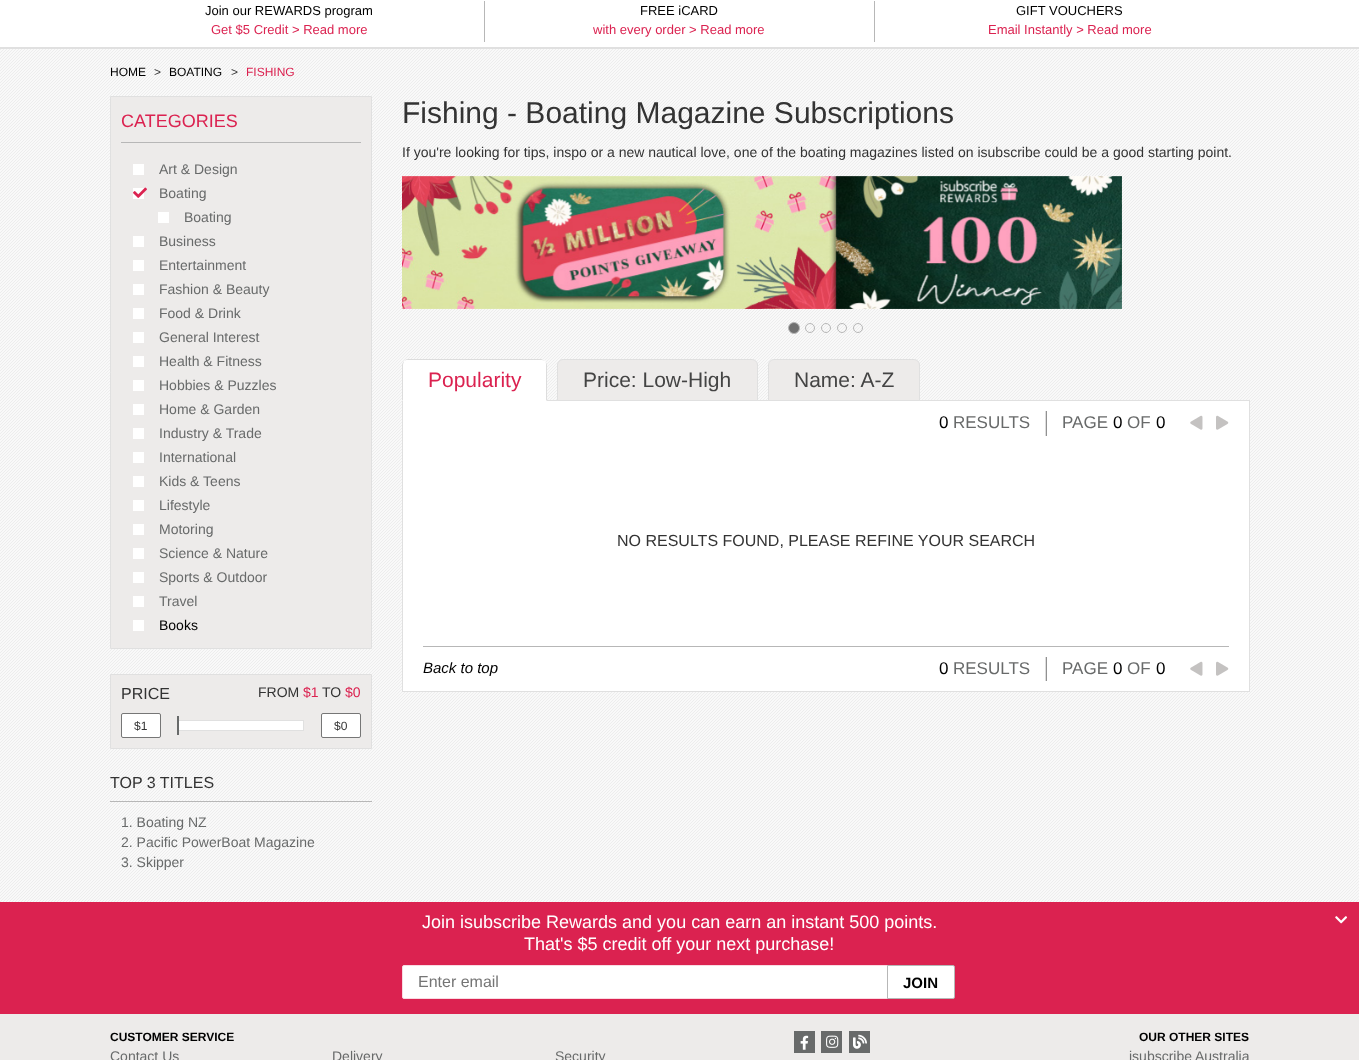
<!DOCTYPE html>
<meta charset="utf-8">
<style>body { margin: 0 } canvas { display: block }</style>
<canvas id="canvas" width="1359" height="1060"></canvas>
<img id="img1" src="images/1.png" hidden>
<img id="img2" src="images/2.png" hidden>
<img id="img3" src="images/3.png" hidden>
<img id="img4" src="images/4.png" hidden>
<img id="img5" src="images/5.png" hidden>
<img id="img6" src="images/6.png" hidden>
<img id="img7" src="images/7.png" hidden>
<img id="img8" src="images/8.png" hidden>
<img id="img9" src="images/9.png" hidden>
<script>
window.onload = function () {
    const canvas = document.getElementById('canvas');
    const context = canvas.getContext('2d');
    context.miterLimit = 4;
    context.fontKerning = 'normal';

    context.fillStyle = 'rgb(255, 255, 255)';
    context.fillRect(0, 0, 1359, 1060);
    context.fillStyle = 'rgb(224, 224, 224)';
    context.fillRect(0, 47, 1359, 2);
    context.fillStyle = 'rgb(183, 183, 183)';
    context.fillRect(484, 1, 1, 41);
    context.fillRect(874, 1, 1, 41);
    context.drawImage(document.getElementById('img1'), 0, 49, 1359, 853);
    context.fillStyle = 'rgb(237, 235, 234)';
    context.beginPath();
    context.rect(110.5, 96.5, 261, 552);
    context.fill();
    context.strokeStyle = 'rgb(224, 224, 224)';
    context.stroke();
    context.fillStyle = 'rgb(183, 183, 183)';
    context.fillRect(121, 142, 240, 1);
    context.fillStyle = 'rgb(255, 255, 255)';
    context.fillRect(133, 164, 11, 11);
    context.fillRect(133, 188, 11, 11);
    context.drawImage(document.getElementById('img2'), 133, 187, 14, 11);
    context.fillRect(158, 212, 11, 11);
    context.fillRect(133, 236, 11, 11);
    context.fillRect(133, 260, 11, 11);
    context.fillRect(133, 284, 11, 11);
    context.fillRect(133, 308, 11, 11);
    context.fillRect(133, 332, 11, 11);
    context.fillRect(133, 356, 11, 11);
    context.fillRect(133, 380, 11, 11);
    context.fillRect(133, 404, 11, 11);
    context.fillRect(133, 428, 11, 11);
    context.fillRect(133, 452, 11, 11);
    context.fillRect(133, 476, 11, 11);
    context.fillRect(133, 500, 11, 11);
    context.fillRect(133, 524, 11, 11);
    context.fillRect(133, 548, 11, 11);
    context.fillRect(133, 572, 11, 11);
    context.fillRect(133, 596, 11, 11);
    context.fillRect(133, 620, 11, 11);
    context.fillStyle = 'rgb(237, 235, 234)';
    context.beginPath();
    context.rect(110.5, 674.5, 261, 74);
    context.fill();
    context.stroke();
    context.fillStyle = 'rgb(255, 255, 255)';
    context.beginPath();
    context.roundRect(121.5, 713.5, 39, 24, 1.5);
    context.fill();
    context.strokeStyle = 'rgb(118, 118, 118)';
    context.stroke();
    context.fillRect(179, 721, 124, 9);
    context.strokeStyle = 'rgb(224, 224, 224)';
    context.strokeRect(177.5, 720.5, 126, 10);
    context.fillStyle = 'rgb(104, 106, 106)';
    context.fillRect(177, 716, 2, 19);
    context.fillStyle = 'rgb(255, 255, 255)';
    context.beginPath();
    context.roundRect(321.5, 713.5, 39, 24, 1.5);
    context.fill();
    context.strokeStyle = 'rgb(118, 118, 118)';
    context.stroke();
    context.fillStyle = 'rgb(183, 183, 183)';
    context.fillRect(110, 801, 262, 1);
    context.drawImage(document.getElementById('img3'), 402, 176, 720, 133);
    context.fillStyle = 'rgb(112, 112, 112)';
    context.beginPath();
    context.arc(794, 328, 5.5, 0, 2 * Math.PI);
    context.fill();
    context.strokeStyle = 'rgb(183, 183, 183)';
    context.stroke();
    context.beginPath();
    context.arc(810, 328, 4.5, 0, 2 * Math.PI);
    context.stroke();
    context.beginPath();
    context.arc(826, 328, 4.5, 0, 2 * Math.PI);
    context.stroke();
    context.beginPath();
    context.arc(842, 328, 4.5, 0, 2 * Math.PI);
    context.stroke();
    context.beginPath();
    context.arc(858, 328, 4.5, 0, 2 * Math.PI);
    context.stroke();
    context.fillStyle = 'rgb(224, 224, 224)';
    context.fillRect(547, 400, 703, 1);
    context.fillStyle = 'rgb(255, 255, 255)';
    context.beginPath();
    context.roundRect(402, 359, 145, 42, [6, 6, 0, 0]);
    context.fill();
    context.fillStyle = 'rgb(221, 221, 221)';
    context.beginPath();
    context.moveTo(408, 359);
    context.bezierCurveTo(406, 359, 405, 360, 404, 361);
    context.bezierCurveTo(405, 360, 406, 360, 408, 360);
    context.lineTo(541, 360);
    context.bezierCurveTo(542, 360, 544, 360, 545, 361);
    context.bezierCurveTo(544, 360, 542, 359, 541, 359);
    context.closePath();
    context.fill();
    context.beginPath();
    context.moveTo(547, 401);
    context.lineTo(547, 365);
    context.bezierCurveTo(547, 364, 546, 362, 545, 361);
    context.bezierCurveTo(546, 362, 546, 364, 546, 365);
    context.lineTo(546, 400);
    context.closePath();
    context.fill();
    context.beginPath();
    context.moveTo(402, 401);
    context.lineTo(403, 400);
    context.lineTo(403, 365);
    context.bezierCurveTo(403, 364, 404, 362, 404, 361);
    context.bezierCurveTo(403, 362, 402, 364, 402, 365);
    context.closePath();
    context.fill();
    context.fillStyle = 'rgb(237, 235, 234)';
    context.beginPath();
    context.roundRect(557.5, 359.5, 200, 41, [5.5, 5.5, 0, 0]);
    context.fill();
    context.strokeStyle = 'rgb(224, 224, 224)';
    context.stroke();
    context.beginPath();
    context.roundRect(768.5, 359.5, 151, 41, [5.5, 5.5, 0, 0]);
    context.fill();
    context.stroke();
    context.fillStyle = 'rgb(255, 255, 255)';
    context.fillRect(403, 401, 846, 290);
    context.fillStyle = 'rgb(224, 224, 224)';
    context.fillRect(1249, 401, 1, 291);
    context.fillRect(402, 401, 1, 246);
    context.fillStyle = 'rgb(221, 221, 221)';
    context.fillRect(1045, 411, 1, 25);
    context.fillStyle = 'rgb(145, 145, 145)';
    context.fillRect(1046, 411, 1, 25);
    context.drawImage(document.getElementById('img4'), 1190, 415, 13, 15);
    context.drawImage(document.getElementById('img5'), 1216, 415, 13, 15);
    context.fillStyle = 'rgb(183, 183, 183)';
    context.fillRect(423, 646, 806, 1);
    context.fillStyle = 'rgb(224, 224, 224)';
    context.fillRect(402, 691, 848, 1);
    context.fillRect(402, 647, 1, 45);
    context.fillStyle = 'rgb(221, 221, 221)';
    context.fillRect(1045, 657, 1, 24);
    context.fillStyle = 'rgb(145, 145, 145)';
    context.fillRect(1046, 657, 1, 24);
    context.drawImage(document.getElementById('img4'), 1190, 661, 13, 15);
    context.drawImage(document.getElementById('img5'), 1216, 661, 13, 15);
    context.fillStyle = 'rgb(219, 34, 80)';
    context.fillRect(0, 902, 1359, 112);
    context.fillStyle = 'rgb(255, 255, 255)';
    context.beginPath();
    context.roundRect(402.5, 965.5, 486, 33, 1.5);
    context.fill();
    context.strokeStyle = 'rgb(249, 218, 226)';
    context.stroke();
    context.beginPath();
    context.roundRect(887.5, 965.5, 67, 33, [0, 1.5, 1.5, 0]);
    context.fill();
    context.strokeStyle = 'rgb(183, 183, 183)';
    context.stroke();
    context.drawImage(document.getElementById('img6'), 1335, 916, 12, 8);
    context.fillStyle = 'rgb(237, 235, 234)';
    context.fillRect(0, 1014, 1359, 46);
    context.fillStyle = 'rgb(104, 106, 106)';
    context.fillRect(794, 1031, 21, 22);
    context.drawImage(document.getElementById('img7'), 800, 1035, 9, 15);
    context.fillRect(821, 1031, 21, 22);
    context.drawImage(document.getElementById('img8'), 826, 1035, 13, 13);
    context.fillRect(849, 1031, 21, 22);
    context.drawImage(document.getElementById('img9'), 853, 1034, 14, 15);
    context.font = '13px Liberation Sans';
    context.fillStyle = 'rgb(0, 0, 0)';
    context.fillText('Join our REWARDS program', 205, 15);
    context.fillStyle = 'rgb(219, 34, 80)';
    context.fillText('Get $5 Credit > Read more', 211, 34);
    context.fillStyle = 'rgb(0, 0, 0)';
    context.fillText('FREE iCARD', 640, 15);
    context.fillStyle = 'rgb(219, 34, 80)';
    context.fillText('with every order > Read more', 593, 34);
    context.fillStyle = 'rgb(0, 0, 0)';
    context.fillText('GIFT VOUCHERS', 1016, 15);
    context.fillStyle = 'rgb(219, 34, 80)';
    context.fillText('Email Instantly > Read more', 988, 34);
    context.font = '12px Liberation Sans';
    context.fillStyle = 'rgb(0, 0, 0)';
    context.fillText('HOME', 110, 76);
    context.fillStyle = 'rgb(51, 51, 51)';
    context.fillText('>', 154, 76);
    context.fillStyle = 'rgb(0, 0, 0)';
    context.fillText('BOATING', 169, 76);
    context.fillStyle = 'rgb(51, 51, 51)';
    context.fillText('>', 231, 76);
    context.fillStyle = 'rgb(219, 34, 80)';
    context.fillText('FISHING', 246, 76);
    context.font = '18px Liberation Sans';
    context.fillText('CATEGORIES', 121, 127);
    context.font = '14px Liberation Sans';
    context.fillStyle = 'rgb(104, 106, 106)';
    context.fillText('Art & Design', 159, 174);
    context.fillText('Boating', 159, 198);
    context.fillText('Boating', 184, 222);
    context.fillText('Business', 159, 246);
    context.fillText('Entertainment', 159, 270);
    context.fillText('Fashion & Beauty', 159, 294);
    context.fillText('Food & Drink', 159, 318);
    context.fillText('General Interest', 159, 342);
    context.fillText('Health & Fitness', 159, 366);
    context.fillText('Hobbies & Puzzles', 159, 390);
    context.fillText('Home & Garden', 159, 414);
    context.fillText('Industry & Trade', 159, 438);
    context.fillText('International', 159, 462);
    context.fillText('Kids & Teens', 159, 486);
    context.fillText('Lifestyle', 159, 510);
    context.fillText('Motoring', 159, 534);
    context.fillText('Science & Nature', 159, 558);
    context.fillText('Sports & Outdoor', 159, 582);
    context.fillText('Travel', 159, 606);
    context.fillStyle = 'rgb(0, 0, 0)';
    context.fillText('Books', 159, 630);
    context.font = '16px Liberation Sans';
    context.fillStyle = 'rgb(51, 51, 51)';
    context.fillText('PRICE', 121, 699);
    context.font = '14px Liberation Sans';
    context.fillText('FROM', 258, 697);
    context.fillStyle = 'rgb(219, 34, 80)';
    context.fillText('$1', 303, 697);
    context.fillStyle = 'rgb(51, 51, 51)';
    context.fillText('TO', 322, 697);
    context.fillStyle = 'rgb(219, 34, 80)';
    context.fillText('$0', 345, 697);
    context.font = '12px Liberation Sans';
    context.fillStyle = 'rgb(51, 51, 51)';
    context.fillText('$1', 134, 730);
    context.fillText('$0', 334, 730);
    context.font = '16px Liberation Sans';
    context.fillText('TOP 3 TITLES', 110, 788);
    context.font = '14px Liberation Sans';
    context.fillStyle = 'rgb(104, 106, 106)';
    context.fillText('1. Boating NZ', 121, 827);
    context.fillText('2. Pacific PowerBoat Magazine', 121, 847);
    context.fillText('3. Skipper', 121, 867);
    context.font = '30px Liberation Sans';
    context.fillStyle = 'rgb(51, 51, 51)';
    context.fillText('Fishing - Boating Magazine Subscriptions', 402, 123);
    context.font = '14px Liberation Sans';
    context.fillText('If you\'re looking for tips, inspo or a new nautical love, one of the boating magazines listed on isubscribe could be a good starting point.', 402, 157);
    context.font = '21px Liberation Sans';
    context.fillStyle = 'rgb(219, 34, 80)';
    context.fillText('Popularity', 428, 387);
    context.fillStyle = 'rgb(68, 68, 68)';
    context.fillText('Price: Low-High', 583, 387);
    context.fillText('Name: A-Z', 794, 387);
    context.font = '17px Liberation Sans';
    context.fillStyle = 'rgb(0, 0, 0)';
    context.fillText('0', 939, 428);
    context.fillStyle = 'rgb(104, 106, 106)';
    context.fillText('RESULTS', 953, 428);
    context.fillText('PAGE', 1062, 428);
    context.fillStyle = 'rgb(0, 0, 0)';
    context.fillText('0', 1113, 428);
    context.fillStyle = 'rgb(104, 106, 106)';
    context.fillText('OF', 1127, 428);
    context.fillStyle = 'rgb(0, 0, 0)';
    context.fillText('0', 1156, 428);
    context.font = '16px Liberation Sans';
    context.fillStyle = 'rgb(51, 51, 51)';
    context.fillText('NO RESULTS FOUND, PLEASE REFINE YOUR SEARCH', 617, 546);
    context.font = 'italic 15px Liberation Sans';
    context.fillStyle = 'rgb(0, 0, 0)';
    context.fillText('Back to top', 423, 673);
    context.font = '17px Liberation Sans';
    context.fillText('0', 939, 674);
    context.fillStyle = 'rgb(104, 106, 106)';
    context.fillText('RESULTS', 953, 674);
    context.fillText('PAGE', 1062, 674);
    context.fillStyle = 'rgb(0, 0, 0)';
    context.fillText('0', 1113, 674);
    context.fillStyle = 'rgb(104, 106, 106)';
    context.fillText('OF', 1127, 674);
    context.fillStyle = 'rgb(0, 0, 0)';
    context.fillText('0', 1156, 674);
    context.font = '18px Liberation Sans';
    context.fillStyle = 'rgb(255, 255, 255)';
    context.fillText('Join isubscribe Rewards and you can earn an instant 500 points.', 422, 928);
    context.fillText('That\'s $5 credit off your next purchase!', 524, 950);
    context.font = '16px Liberation Sans';
    context.fillStyle = 'rgb(117, 117, 117)';
    context.fillText('Enter email', 418, 987);
    context.font = 'bold 15px Liberation Sans';
    context.fillStyle = 'rgb(0, 0, 0)';
    context.fillText('JOIN', 903, 988);
    context.font = 'bold 12px Liberation Sans';
    context.fillText('CUSTOMER SERVICE', 110, 1041);
    context.font = '14px Liberation Sans';
    context.fillStyle = 'rgb(104, 106, 106)';
    context.fillText('Contact Us', 110, 1061);
    context.fillText('Delivery', 332, 1061);
    context.fillText('Security', 555, 1061);
    context.font = 'bold 12px Liberation Sans';
    context.fillStyle = 'rgb(0, 0, 0)';
    context.fillText('OUR OTHER SITES', 1139, 1041);
    context.font = '14px Liberation Sans';
    context.fillStyle = 'rgb(104, 106, 106)';
    context.fillText('isubscribe', 1129, 1061);
    context.fillText('Australia', 1195, 1061);
};
</script>
